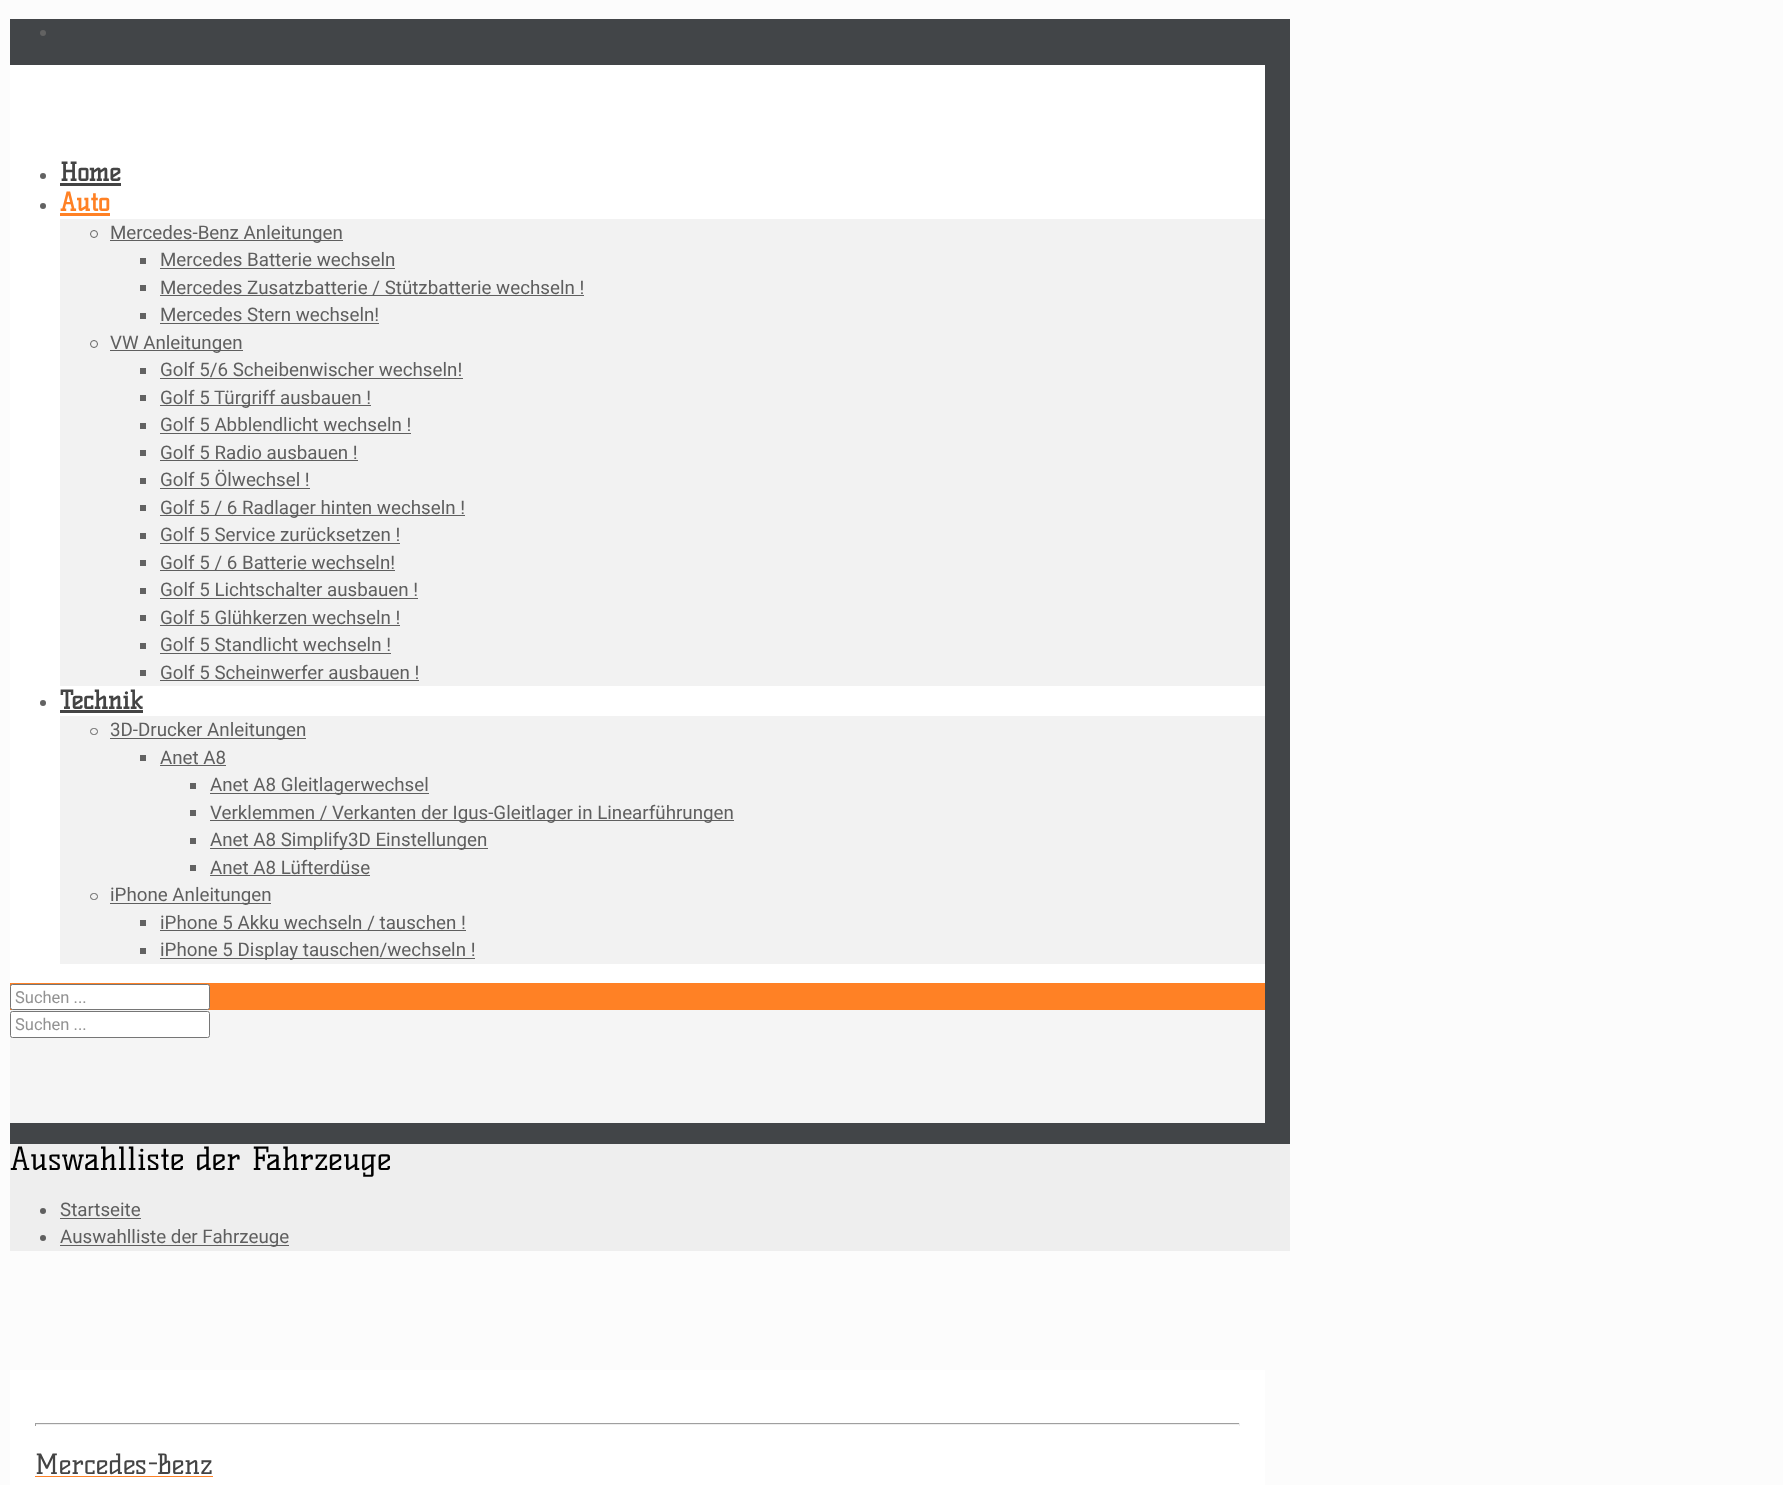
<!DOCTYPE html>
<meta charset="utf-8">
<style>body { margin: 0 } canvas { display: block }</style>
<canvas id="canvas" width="1783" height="1485"></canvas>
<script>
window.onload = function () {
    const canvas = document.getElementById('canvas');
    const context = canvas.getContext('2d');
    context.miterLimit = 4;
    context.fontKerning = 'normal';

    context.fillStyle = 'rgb(252, 252, 252)';
    context.fillRect(0, 0, 1783, 1485);
    context.fillStyle = 'rgb(66, 69, 72)';
    context.fillRect(10, 19, 1280, 1125);
    context.fillStyle = 'rgb(98, 98, 98)';
    context.beginPath();
    context.arc(43, 33, 3, 0, 2 * Math.PI);
    context.fill();
    context.fillStyle = 'rgb(255, 255, 255)';
    context.fillRect(10, 65, 1255, 918);
    context.fillStyle = 'rgb(98, 98, 98)';
    context.beginPath();
    context.arc(43, 176, 3, 0, 2 * Math.PI);
    context.fill();
    context.fillStyle = 'rgb(68, 68, 68)';
    context.fillRect(60, 183, 61, 3);
    context.fillStyle = 'rgb(98, 98, 98)';
    context.beginPath();
    context.arc(43, 206, 3, 0, 2 * Math.PI);
    context.fill();
    context.fillStyle = 'rgb(255, 129, 37)';
    context.fillRect(60, 213, 50, 3);
    context.fillStyle = 'rgb(242, 242, 242)';
    context.fillRect(60, 219, 1205, 467);
    context.beginPath();
    context.arc(94, 234, 3.5, 0, 2 * Math.PI);
    context.strokeStyle = 'rgb(98, 98, 98)';
    context.stroke();
    context.fillStyle = 'rgb(95, 95, 95)';
    context.fillRect(110, 240, 233, 1);
    context.fillStyle = 'rgb(98, 98, 98)';
    context.fillRect(140, 258, 6, 6);
    context.fillStyle = 'rgb(95, 95, 95)';
    context.fillRect(160, 268, 235, 1);
    context.fillStyle = 'rgb(98, 98, 98)';
    context.fillRect(140, 285, 6, 6);
    context.fillStyle = 'rgb(95, 95, 95)';
    context.fillRect(160, 295, 424, 1);
    context.fillStyle = 'rgb(98, 98, 98)';
    context.fillRect(140, 313, 6, 6);
    context.fillStyle = 'rgb(95, 95, 95)';
    context.fillRect(160, 323, 219, 1);
    context.beginPath();
    context.arc(94, 344, 3.5, 0, 2 * Math.PI);
    context.stroke();
    context.fillRect(110, 350, 133, 1);
    context.fillStyle = 'rgb(98, 98, 98)';
    context.fillRect(140, 368, 6, 6);
    context.fillStyle = 'rgb(95, 95, 95)';
    context.fillRect(160, 378, 303, 1);
    context.fillStyle = 'rgb(98, 98, 98)';
    context.fillRect(140, 395, 6, 6);
    context.fillStyle = 'rgb(95, 95, 95)';
    context.fillRect(160, 405, 211, 1);
    context.fillStyle = 'rgb(98, 98, 98)';
    context.fillRect(140, 423, 6, 6);
    context.fillStyle = 'rgb(95, 95, 95)';
    context.fillRect(160, 433, 251, 1);
    context.fillStyle = 'rgb(98, 98, 98)';
    context.fillRect(140, 450, 6, 6);
    context.fillStyle = 'rgb(95, 95, 95)';
    context.fillRect(160, 460, 198, 1);
    context.fillStyle = 'rgb(98, 98, 98)';
    context.fillRect(140, 478, 6, 6);
    context.fillStyle = 'rgb(95, 95, 95)';
    context.fillRect(160, 488, 150, 1);
    context.fillStyle = 'rgb(98, 98, 98)';
    context.fillRect(140, 505, 6, 6);
    context.fillStyle = 'rgb(95, 95, 95)';
    context.fillRect(160, 515, 305, 1);
    context.fillStyle = 'rgb(98, 98, 98)';
    context.fillRect(140, 533, 6, 6);
    context.fillStyle = 'rgb(95, 95, 95)';
    context.fillRect(160, 543, 240, 1);
    context.fillStyle = 'rgb(98, 98, 98)';
    context.fillRect(140, 560, 6, 6);
    context.fillStyle = 'rgb(95, 95, 95)';
    context.fillRect(160, 570, 235, 1);
    context.fillStyle = 'rgb(98, 98, 98)';
    context.fillRect(140, 588, 6, 6);
    context.fillStyle = 'rgb(95, 95, 95)';
    context.fillRect(160, 598, 258, 1);
    context.fillStyle = 'rgb(98, 98, 98)';
    context.fillRect(140, 615, 6, 6);
    context.fillStyle = 'rgb(95, 95, 95)';
    context.fillRect(160, 625, 240, 1);
    context.fillStyle = 'rgb(98, 98, 98)';
    context.fillRect(140, 643, 6, 6);
    context.fillStyle = 'rgb(95, 95, 95)';
    context.fillRect(160, 653, 231, 1);
    context.fillStyle = 'rgb(98, 98, 98)';
    context.fillRect(140, 670, 6, 6);
    context.fillStyle = 'rgb(95, 95, 95)';
    context.fillRect(160, 680, 259, 1);
    context.fillStyle = 'rgb(98, 98, 98)';
    context.beginPath();
    context.arc(43, 703, 3, 0, 2 * Math.PI);
    context.fill();
    context.fillStyle = 'rgb(68, 68, 68)';
    context.fillRect(60, 710, 83, 3);
    context.fillStyle = 'rgb(242, 242, 242)';
    context.fillRect(60, 716, 1205, 248);
    context.beginPath();
    context.roundRect(90.5, 728.5, 7, 6, 3);
    context.stroke();
    context.fillStyle = 'rgb(95, 95, 95)';
    context.fillRect(110, 738, 196, 1);
    context.fillStyle = 'rgb(98, 98, 98)';
    context.fillRect(140, 755, 6, 6);
    context.fillStyle = 'rgb(95, 95, 95)';
    context.fillRect(160, 765, 66, 1);
    context.fillStyle = 'rgb(98, 98, 98)';
    context.fillRect(190, 783, 6, 6);
    context.fillStyle = 'rgb(95, 95, 95)';
    context.fillRect(210, 793, 219, 1);
    context.fillStyle = 'rgb(98, 98, 98)';
    context.fillRect(190, 810, 6, 6);
    context.fillStyle = 'rgb(95, 95, 95)';
    context.fillRect(210, 820, 524, 1);
    context.fillStyle = 'rgb(98, 98, 98)';
    context.fillRect(190, 838, 6, 6);
    context.fillStyle = 'rgb(95, 95, 95)';
    context.fillRect(210, 848, 278, 1);
    context.fillStyle = 'rgb(98, 98, 98)';
    context.fillRect(190, 865, 6, 6);
    context.fillStyle = 'rgb(95, 95, 95)';
    context.fillRect(210, 875, 160, 1);
    context.beginPath();
    context.roundRect(90.5, 893.5, 7, 6, 3);
    context.stroke();
    context.fillRect(110, 903, 161, 1);
    context.fillStyle = 'rgb(98, 98, 98)';
    context.fillRect(140, 920, 6, 6);
    context.fillStyle = 'rgb(95, 95, 95)';
    context.fillRect(160, 930, 306, 1);
    context.fillStyle = 'rgb(98, 98, 98)';
    context.fillRect(140, 948, 6, 6);
    context.fillStyle = 'rgb(95, 95, 95)';
    context.fillRect(160, 958, 315, 1);
    context.fillStyle = 'rgb(255, 129, 37)';
    context.fillRect(10, 983, 1255, 27);
    context.fillStyle = 'rgb(255, 255, 255)';
    context.beginPath();
    context.roundRect(10.5, 984.5, 199, 25, 2);
    context.fill();
    context.strokeStyle = 'rgb(118, 118, 118)';
    context.stroke();
    context.fillStyle = 'rgb(245, 245, 245)';
    context.fillRect(10, 1010, 1255, 113);
    context.fillStyle = 'rgb(255, 255, 255)';
    context.beginPath();
    context.roundRect(10.5, 1011.5, 199, 26, 2);
    context.fill();
    context.stroke();
    context.fillStyle = 'rgb(238, 238, 238)';
    context.fillRect(10, 1144, 1280, 107);
    context.fillStyle = 'rgb(95, 95, 95)';
    context.beginPath();
    context.arc(43, 1211, 3, 0, 2 * Math.PI);
    context.fill();
    context.fillRect(60, 1218, 81, 1);
    context.beginPath();
    context.arc(43, 1238, 3, 0, 2 * Math.PI);
    context.fill();
    context.fillRect(60, 1245, 229, 1);
    context.fillStyle = 'rgb(255, 255, 255)';
    context.fillRect(10, 1370, 1255, 115);
    context.fillStyle = 'rgb(159, 159, 159)';
    context.fillRect(35, 1423, 1205, 1);
    context.fillStyle = 'rgb(238, 238, 238)';
    context.fillRect(1239, 1423, 1, 3);
    context.fillRect(35, 1424, 1205, 1);
    context.fillStyle = 'rgb(159, 159, 159)';
    context.fillRect(35, 1423, 1, 3);
    context.fillStyle = 'rgb(255, 129, 37)';
    context.fillRect(35, 1476, 178, 1);
    context.font = 'bold 25px Kelly Slab';
    context.fillStyle = 'rgb(68, 68, 68)';
    context.fillText('Home', 60, 181);
    context.fillStyle = 'rgb(255, 129, 37)';
    context.fillText('Auto', 60, 211);
    context.font = '18.75px Roboto';
    context.fillStyle = 'rgb(95, 95, 95)';
    context.fillText('Mercedes-Benz Anleitungen', 110, 239);
    context.fillText('Mercedes Batterie wechseln', 160, 266);
    context.fillText('Mercedes Zusatzbatterie / Stützbatterie wechseln !', 160, 294);
    context.fillText('Mercedes Stern wechseln!', 160, 321);
    context.fillText('VW Anleitungen', 110, 349);
    context.fillText('Golf 5/6 Scheibenwischer wechseln!', 160, 376);
    context.fillText('Golf 5 Türgriff ausbauen !', 160, 404);
    context.fillText('Golf 5 Abblendlicht wechseln !', 160, 431);
    context.fillText('Golf 5 Radio ausbauen !', 160, 459);
    context.fillText('Golf 5 Ölwechsel !', 160, 486);
    context.fillText('Golf 5 / 6 Radlager hinten wechseln !', 160, 514);
    context.fillText('Golf 5 Service zurücksetzen !', 160, 541);
    context.fillText('Golf 5 / 6 Batterie wechseln!', 160, 569);
    context.fillText('Golf 5 Lichtschalter ausbauen !', 160, 596);
    context.fillText('Golf 5 Glühkerzen wechseln !', 160, 624);
    context.fillText('Golf 5 Standlicht wechseln !', 160, 651);
    context.fillText('Golf 5 Scheinwerfer ausbauen !', 160, 679);
    context.font = 'bold 25px Kelly Slab';
    context.fillStyle = 'rgb(68, 68, 68)';
    context.fillText('Technik', 60, 709);
    context.font = '18.75px Roboto';
    context.fillStyle = 'rgb(95, 95, 95)';
    context.fillText('3D-Drucker Anleitungen', 110, 736);
    context.fillText('Anet A8', 160, 764);
    context.fillText('Anet A8 Gleitlagerwechsel', 210, 791);
    context.fillText('Verklemmen / Verkanten der Igus-Gleitlager in Linearführungen', 210, 819);
    context.fillText('Anet A8 Simplify3D Einstellungen', 210, 846);
    context.fillText('Anet A8 Lüfterdüse', 210, 874);
    context.fillText('iPhone Anleitungen', 110, 901);
    context.fillText('iPhone 5 Akku wechseln / tauschen !', 160, 929);
    context.fillText('iPhone 5 Display tauschen/wechseln !', 160, 956);
    context.font = '16.5px Roboto';
    context.fillStyle = 'rgb(146, 146, 146)';
    context.fillText('Suchen ...', 15, 1003);
    context.fillText('Suchen ...', 15, 1030);
    context.font = '31.25px Kelly Slab';
    context.fillStyle = 'rgb(0, 0, 0)';
    context.fillText('Auswahlliste der Fahrzeuge', 10, 1170);
    context.font = '18.75px Roboto';
    context.fillStyle = 'rgb(95, 95, 95)';
    context.fillText('Startseite', 60, 1216);
    context.fillText('Auswahlliste der Fahrzeuge', 60, 1243);
    context.font = '27.5px Kelly Slab';
    context.fillStyle = 'rgb(68, 68, 68)';
    context.fillText('Mercedes-Benz', 35, 1474);
};
</script>
